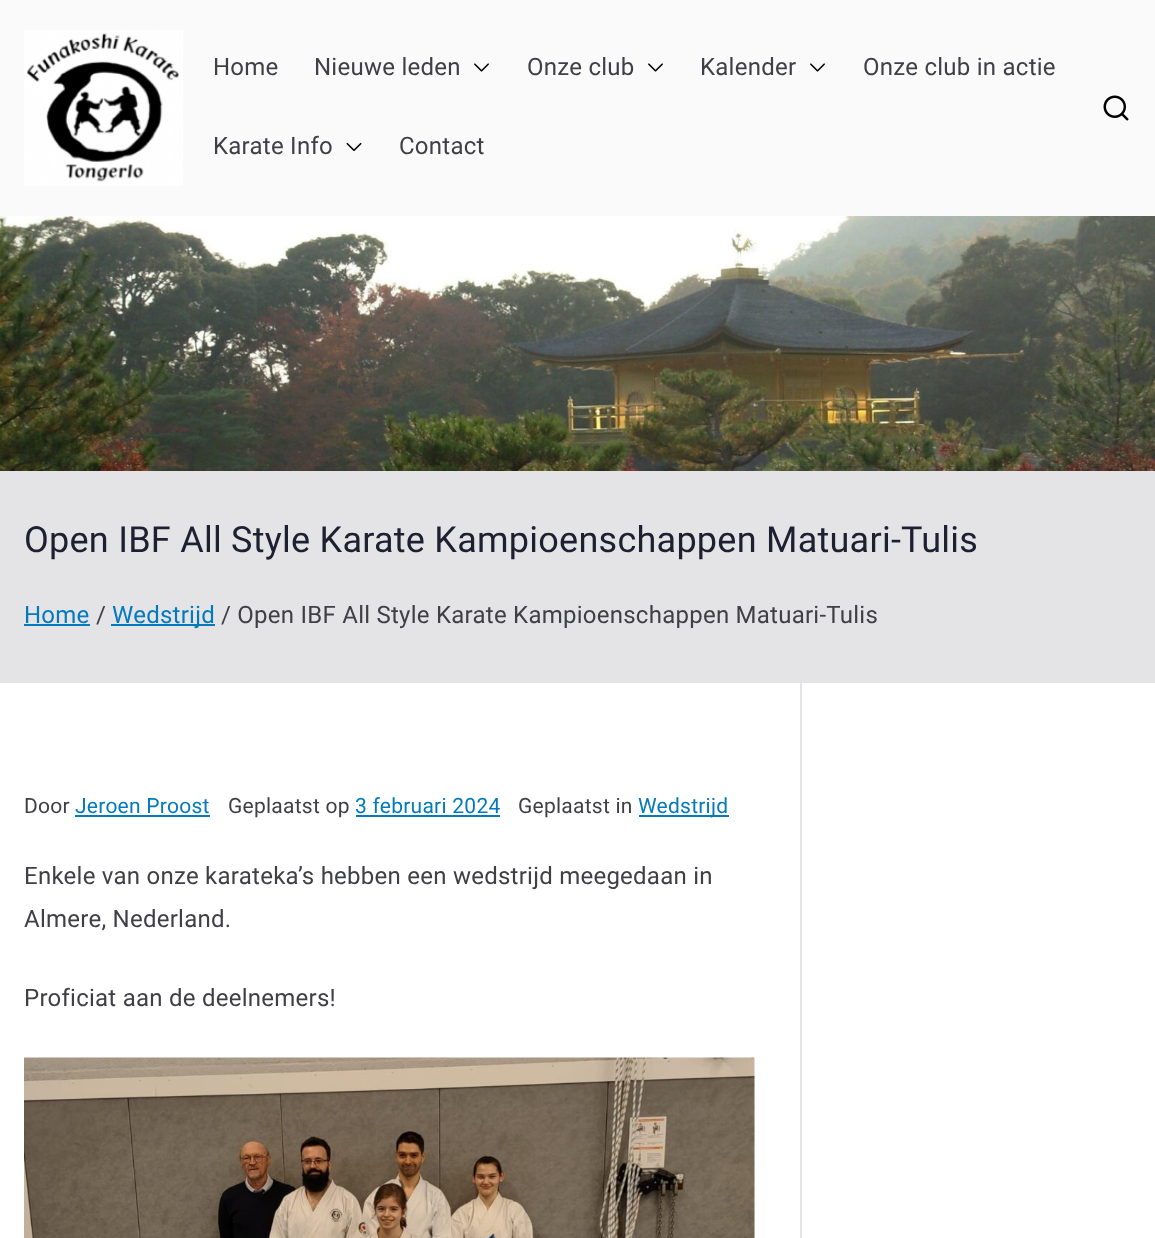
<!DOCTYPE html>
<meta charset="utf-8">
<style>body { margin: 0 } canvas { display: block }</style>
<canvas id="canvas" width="1155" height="1238"></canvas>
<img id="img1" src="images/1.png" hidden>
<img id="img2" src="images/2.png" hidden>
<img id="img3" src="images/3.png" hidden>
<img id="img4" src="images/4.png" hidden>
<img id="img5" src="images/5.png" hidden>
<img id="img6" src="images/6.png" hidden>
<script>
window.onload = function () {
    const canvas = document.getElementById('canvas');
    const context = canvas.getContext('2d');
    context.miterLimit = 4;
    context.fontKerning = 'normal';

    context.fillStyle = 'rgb(250, 250, 250)';
    context.fillRect(0, 0, 1155, 1238);
    context.fillStyle = 'rgb(228, 228, 231)';
    context.fillRect(0, 471, 1155, 212);
    context.drawImage(document.getElementById('img1'), 24, 30, 159, 156);
    context.drawImage(document.getElementById('img2'), 474, 63, 15, 9);
    context.drawImage(document.getElementById('img2'), 648, 63, 15, 9);
    context.drawImage(document.getElementById('img2'), 810, 63, 15, 9);
    context.drawImage(document.getElementById('img3'), 346, 142, 16, 9);
    context.drawImage(document.getElementById('img4'), 1103, 95, 26, 26);
    context.drawImage(document.getElementById('img5'), 0, 216, 1155, 255);
    context.fillStyle = 'rgb(2, 122, 187)';
    context.fillRect(24, 624, 66, 2);
    context.fillRect(111, 624, 104, 2);
    context.fillStyle = 'rgb(255, 255, 255)';
    context.fillRect(0, 683, 1155, 555);
    context.fillStyle = 'rgb(2, 122, 187)';
    context.fillRect(75, 815, 135, 2);
    context.fillRect(356, 815, 144, 2);
    context.fillRect(639, 815, 90, 2);
    context.drawImage(document.getElementById('img6'), 24, 1057, 731, 181);
    context.fillStyle = 'rgb(228, 228, 231)';
    context.fillRect(800, 683, 2, 555);
    context.letterSpacing = '0.25px';
    context.font = '24px Roboto';
    context.fillStyle = 'rgb(63, 63, 70)';
    context.fillText('Home', 213, 75);
    context.fillText('Nieuwe leden', 314, 75);
    context.fillText('Onze club', 527, 75);
    context.fillText('Kalender', 700, 75);
    context.fillText('Onze club in actie', 863, 75);
    context.fillText('Karate Info', 213, 154);
    context.fillText('Contact', 399, 154);
    context.font = '36px Roboto';
    context.fillStyle = 'rgb(31, 31, 50)';
    context.fillText('Open IBF All Style Karate Kampioenschappen Matuari-Tulis', 24, 552);
    context.font = '24px Roboto';
    context.fillStyle = 'rgb(2, 122, 187)';
    context.fillText('Home', 24, 623);
    context.fillStyle = 'rgb(63, 63, 70)';
    context.fillText('/', 96, 623);
    context.fillStyle = 'rgb(2, 122, 187)';
    context.fillText('Wedstrijd', 112, 623);
    context.fillStyle = 'rgb(63, 63, 70)';
    context.fillText('/ Open IBF All Style Karate Kampioenschappen Matuari-Tulis', 221, 623);
    context.font = '21px Roboto';
    context.fillText('Door', 24, 813);
    context.fillStyle = 'rgb(2, 122, 187)';
    context.fillText('Jeroen Proost', 75, 813);
    context.fillStyle = 'rgb(63, 63, 70)';
    context.fillText('Geplaatst op', 228, 813);
    context.fillStyle = 'rgb(2, 122, 187)';
    context.fillText('3 februari 2024', 355, 813);
    context.fillStyle = 'rgb(63, 63, 70)';
    context.fillText('Geplaatst in', 518, 813);
    context.fillStyle = 'rgb(2, 122, 187)';
    context.fillText('Wedstrijd', 638, 813);
    context.font = '24px Roboto';
    context.fillStyle = 'rgb(63, 63, 70)';
    context.fillText('Enkele van onze karateka’s hebben een wedstrijd meegedaan in', 24, 884);
    context.fillText('Almere, Nederland.', 24, 927);
    context.fillText('Proficiat aan de deelnemers!', 24, 1006);
};
</script>
